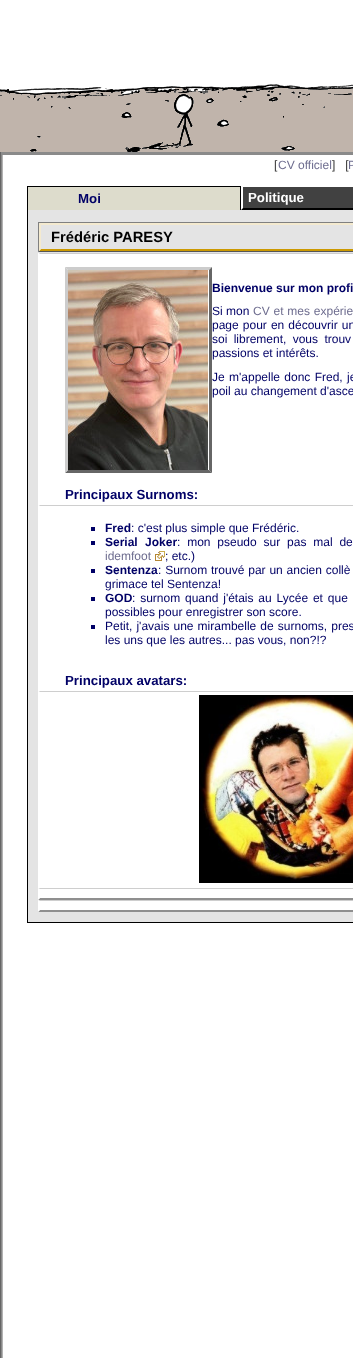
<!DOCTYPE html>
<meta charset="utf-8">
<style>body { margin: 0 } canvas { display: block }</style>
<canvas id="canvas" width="353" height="1358"></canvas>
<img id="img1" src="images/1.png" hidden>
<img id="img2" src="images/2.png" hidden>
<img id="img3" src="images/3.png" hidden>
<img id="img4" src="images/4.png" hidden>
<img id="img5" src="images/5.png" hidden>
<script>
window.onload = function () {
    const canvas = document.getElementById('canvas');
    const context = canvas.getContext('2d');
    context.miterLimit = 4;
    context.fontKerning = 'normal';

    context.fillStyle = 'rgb(255, 255, 255)';
    context.fillRect(0, 0, 353, 1358);
    context.drawImage(document.getElementById('img1'), 0, 152, 353, 1206);
    context.drawImage(document.getElementById('img2'), 0, 0, 353, 152);
    context.fillStyle = 'rgb(138, 138, 138)';
    context.fillRect(1, 152, 352, 3);
    context.fillStyle = 'rgb(221, 220, 204)';
    context.fillRect(28, 187, 212, 23);
    context.fillStyle = 'rgb(0, 0, 0)';
    context.fillRect(27, 186, 214, 1);
    context.fillRect(240, 186, 1, 24);
    context.fillRect(27, 186, 1, 24);
    context.fillStyle = 'rgb(65, 65, 65)';
    context.fillRect(241, 187, 112, 23);
    context.fillStyle = 'rgb(0, 0, 0)';
    context.beginPath();
    context.moveTo(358, 210);
    context.lineTo(241, 210);
    context.lineTo(243, 208);
    context.lineTo(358, 208);
    context.closePath();
    context.fill();
    context.fillStyle = 'rgb(255, 255, 255)';
    context.beginPath();
    context.moveTo(241, 210);
    context.lineTo(241, 186);
    context.lineTo(243, 187);
    context.lineTo(243, 208);
    context.closePath();
    context.fill();
    context.fillStyle = 'rgb(228, 228, 228)';
    context.fillRect(28, 210, 325, 712);
    context.fillStyle = 'rgb(0, 0, 0)';
    context.fillRect(27, 922, 326, 1);
    context.fillRect(27, 210, 1, 713);
    context.fillStyle = 'rgb(128, 128, 128)';
    context.fillRect(38, 222, 315, 1);
    context.fillStyle = 'rgb(85, 85, 85)';
    context.fillRect(38, 251, 315, 1);
    context.fillStyle = 'rgb(128, 128, 128)';
    context.fillRect(38, 222, 1, 30);
    context.fillStyle = 'rgb(244, 234, 207)';
    context.beginPath();
    context.moveTo(39, 223);
    context.lineTo(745, 223);
    context.lineTo(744, 225);
    context.lineTo(41, 225);
    context.closePath();
    context.fill();
    context.fillStyle = 'rgb(204, 153, 0)';
    context.beginPath();
    context.moveTo(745, 251);
    context.lineTo(39, 251);
    context.lineTo(41, 249);
    context.lineTo(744, 249);
    context.closePath();
    context.fill();
    context.fillStyle = 'rgb(244, 234, 207)';
    context.beginPath();
    context.moveTo(39, 251);
    context.lineTo(39, 223);
    context.lineTo(41, 225);
    context.lineTo(41, 249);
    context.closePath();
    context.fill();
    context.fillStyle = 'rgb(255, 255, 255)';
    context.fillRect(38, 253, 315, 635);
    context.fillStyle = 'rgb(206, 206, 206)';
    context.beginPath();
    context.moveTo(38, 253);
    context.lineTo(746, 253);
    context.lineTo(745, 254);
    context.lineTo(40, 254);
    context.closePath();
    context.fill();
    context.fillStyle = 'rgb(255, 255, 255)';
    context.beginPath();
    context.moveTo(38, 475);
    context.lineTo(38, 253);
    context.lineTo(40, 254);
    context.lineTo(40, 475);
    context.closePath();
    context.fill();
    context.fillStyle = 'rgb(204, 204, 204)';
    context.beginPath();
    context.moveTo(65, 267);
    context.lineTo(212, 267);
    context.lineTo(209, 270);
    context.lineTo(68, 270);
    context.closePath();
    context.fill();
    context.fillStyle = 'rgb(102, 102, 102)';
    context.beginPath();
    context.moveTo(212, 267);
    context.lineTo(212, 473);
    context.lineTo(209, 470);
    context.lineTo(209, 270);
    context.closePath();
    context.fill();
    context.beginPath();
    context.moveTo(212, 473);
    context.lineTo(65, 473);
    context.lineTo(68, 470);
    context.lineTo(209, 470);
    context.closePath();
    context.fill();
    context.fillStyle = 'rgb(204, 204, 204)';
    context.beginPath();
    context.moveTo(65, 473);
    context.lineTo(65, 267);
    context.lineTo(68, 270);
    context.lineTo(68, 470);
    context.closePath();
    context.fill();
    context.drawImage(document.getElementById('img3'), 68, 270, 140, 200);
    context.fillStyle = 'rgb(206, 206, 206)';
    context.beginPath();
    context.moveTo(38, 505);
    context.lineTo(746, 505);
    context.lineTo(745, 506);
    context.lineTo(40, 506);
    context.closePath();
    context.fill();
    context.fillStyle = 'rgb(255, 255, 255)';
    context.beginPath();
    context.moveTo(38, 661);
    context.lineTo(38, 505);
    context.lineTo(40, 506);
    context.lineTo(40, 661);
    context.closePath();
    context.fill();
    context.fillStyle = 'rgb(0, 0, 102)';
    context.fillRect(91, 527, 4, 4);
    context.fillRect(91, 541, 4, 4);
    context.drawImage(document.getElementById('img4'), 155, 551, 10, 10);
    context.fillRect(91, 569, 4, 4);
    context.fillRect(91, 597, 4, 4);
    context.fillRect(91, 625, 4, 4);
    context.fillStyle = 'rgb(206, 206, 206)';
    context.beginPath();
    context.moveTo(38, 691);
    context.lineTo(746, 691);
    context.lineTo(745, 692);
    context.lineTo(40, 692);
    context.closePath();
    context.fill();
    context.fillStyle = 'rgb(255, 255, 255)';
    context.beginPath();
    context.moveTo(38, 888);
    context.lineTo(38, 691);
    context.lineTo(40, 692);
    context.lineTo(40, 888);
    context.closePath();
    context.fill();
    context.drawImage(document.getElementById('img5'), 199, 695, 154, 188);
    context.fillRect(40, 889, 313, 9);
    context.fillStyle = 'rgb(206, 206, 206)';
    context.beginPath();
    context.moveTo(38, 888);
    context.lineTo(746, 888);
    context.lineTo(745, 889);
    context.lineTo(40, 889);
    context.closePath();
    context.fill();
    context.fillStyle = 'rgb(143, 143, 143)';
    context.beginPath();
    context.moveTo(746, 900);
    context.lineTo(38, 900);
    context.lineTo(40, 898);
    context.lineTo(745, 898);
    context.closePath();
    context.fill();
    context.fillStyle = 'rgb(255, 255, 255)';
    context.beginPath();
    context.moveTo(38, 900);
    context.lineTo(38, 888);
    context.lineTo(40, 889);
    context.lineTo(40, 898);
    context.closePath();
    context.fill();
    context.fillRect(40, 901, 313, 9);
    context.fillStyle = 'rgb(206, 206, 206)';
    context.beginPath();
    context.moveTo(38, 900);
    context.lineTo(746, 900);
    context.lineTo(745, 901);
    context.lineTo(40, 901);
    context.closePath();
    context.fill();
    context.fillStyle = 'rgb(143, 143, 143)';
    context.beginPath();
    context.moveTo(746, 912);
    context.lineTo(38, 912);
    context.lineTo(40, 910);
    context.lineTo(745, 910);
    context.closePath();
    context.fill();
    context.fillStyle = 'rgb(255, 255, 255)';
    context.beginPath();
    context.moveTo(38, 912);
    context.lineTo(38, 900);
    context.lineTo(40, 901);
    context.lineTo(40, 910);
    context.closePath();
    context.fill();
    context.font = '12px Liberation Sans';
    context.fillStyle = 'rgb(51, 51, 51)';
    context.fillText('[', 274, 169);
    context.fillStyle = 'rgb(110, 109, 143)';
    context.fillText('CV officiel', 278, 169);
    context.fillStyle = 'rgb(51, 51, 51)';
    context.fillText(']   [', 332, 169);
    context.fillStyle = 'rgb(110, 109, 143)';
    context.fillText('P', 348, 169);
    context.font = 'bold 13.25px Liberation Sans';
    context.fillStyle = 'rgb(0, 0, 102)';
    context.fillText('Moi', 78, 203);
    context.fillStyle = 'rgb(255, 255, 255)';
    context.fillText('Politique', 248, 202);
    context.font = 'bold 14.75px Liberation Sans';
    context.fillStyle = 'rgb(0, 0, 0)';
    context.fillText('Frédéric PARESY', 51, 242);
    context.font = 'bold 12px Liberation Sans';
    context.fillStyle = 'rgb(0, 0, 102)';
    context.fillText('Bienvenue sur mon profi', 212, 292);
    context.font = '12px Liberation Sans';
    context.fillText('Si mon', 212, 315);
    context.wordSpacing = '0.5px';
    context.fillStyle = 'rgb(110, 109, 143)';
    context.fillText('CV et mes expérie', 253, 315);
    context.wordSpacing = '0.75px';
    context.fillStyle = 'rgb(0, 0, 102)';
    context.fillText('page pour en découvrir un', 212, 329);
    context.wordSpacing = '3px';
    context.fillText('soi librement, vous trouv', 212, 343);
    context.wordSpacing = '0px';
    context.fillText('passions et intérêts.', 212, 357);
    context.wordSpacing = '1px';
    context.fillText('Je m\'appelle donc Fred, je', 212, 381);
    context.wordSpacing = '0px';
    context.fillText('poil au changement d\'asce', 212, 395);
    context.font = 'bold 13.25px Liberation Sans';
    context.fillText('Principaux Surnoms:', 65, 499);
    context.font = 'bold 12px Liberation Sans';
    context.fillText('Fred', 105, 532);
    context.font = '12px Liberation Sans';
    context.fillText(': c\'est plus simple que Frédéric.', 131, 532);
    context.wordSpacing = '4px';
    context.font = 'bold 12px Liberation Sans';
    context.fillText('Serial Joker', 105, 546);
    context.wordSpacing = '3.5px';
    context.font = '12px Liberation Sans';
    context.fillText(': mon pseudo sur pas mal de', 177, 546);
    context.wordSpacing = '0px';
    context.fillStyle = 'rgb(110, 109, 143)';
    context.fillText('idemfoot', 105, 560);
    context.fillStyle = 'rgb(0, 0, 102)';
    context.fillText('; etc.)', 165, 560);
    context.font = 'bold 12px Liberation Sans';
    context.fillText('Sentenza', 105, 574);
    context.wordSpacing = '0.5px';
    context.font = '12px Liberation Sans';
    context.fillText(': Surnom trouvé par un ancien collè', 158, 574);
    context.wordSpacing = '0px';
    context.fillText('grimace tel Sentenza!', 105, 588);
    context.font = 'bold 12px Liberation Sans';
    context.fillText('GOD', 105, 602);
    context.wordSpacing = '1.5px';
    context.font = '12px Liberation Sans';
    context.fillText(': surnom quand j\'étais au Lycée et que', 132, 602);
    context.wordSpacing = '0px';
    context.fillText('possibles pour enregistrer son score.', 105, 616);
    context.wordSpacing = '0.75px';
    context.fillText('Petit, j\'avais une mirambelle de surnoms, pres', 105, 630);
    context.wordSpacing = '0px';
    context.fillText('les uns que les autres... pas vous, non?!?', 105, 644);
    context.font = 'bold 13.25px Liberation Sans';
    context.fillText('Principaux avatars:', 65, 685);
};
</script>
